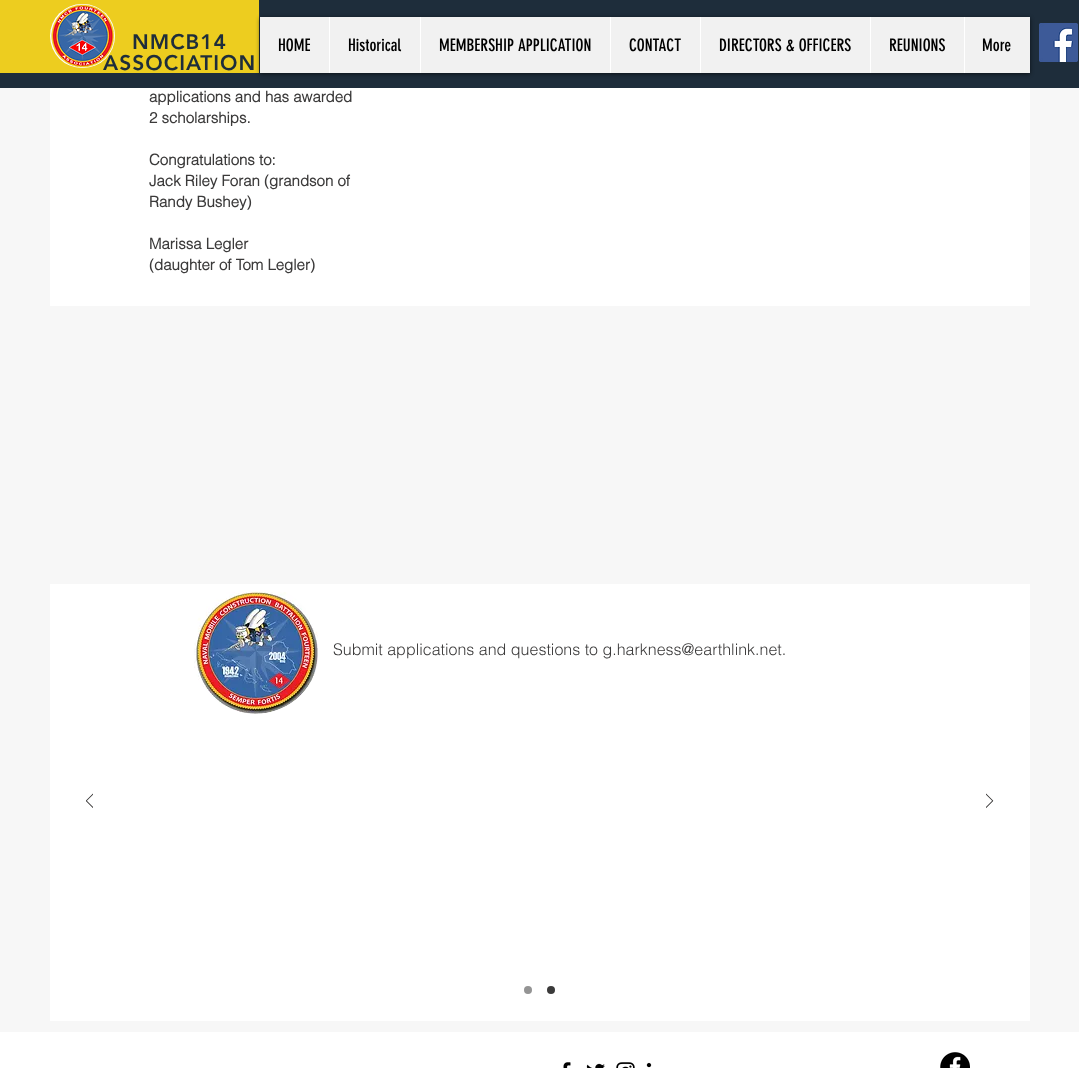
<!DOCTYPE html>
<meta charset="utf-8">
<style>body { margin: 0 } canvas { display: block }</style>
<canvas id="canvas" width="1079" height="1068"></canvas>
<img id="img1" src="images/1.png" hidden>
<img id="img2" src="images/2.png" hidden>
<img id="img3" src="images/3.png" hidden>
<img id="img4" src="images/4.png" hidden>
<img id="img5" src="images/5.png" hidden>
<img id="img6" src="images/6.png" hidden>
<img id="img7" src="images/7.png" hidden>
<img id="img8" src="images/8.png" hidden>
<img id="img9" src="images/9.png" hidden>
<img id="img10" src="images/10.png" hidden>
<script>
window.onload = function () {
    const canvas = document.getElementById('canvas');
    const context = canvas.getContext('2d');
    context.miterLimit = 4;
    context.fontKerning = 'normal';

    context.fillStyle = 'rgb(255, 255, 255)';
    context.fillRect(0, 0, 1079, 1068);
    context.fillStyle = 'rgb(30, 45, 59)';
    context.fillRect(0, 0, 1079, 88);
    context.fillStyle = 'rgb(237, 205, 31)';
    context.fillRect(0, 0, 259, 73);
    context.fillStyle = 'rgb(255, 255, 255)';
    context.beginPath();
    context.roundRect(50, 4, 65, 64, 32);
    context.fill();
    context.drawImage(document.getElementById('img1'), 51, 4, 64, 64);
    context.fillStyle = 'rgba(0, 0, 0, 0.6)';
    context.filter = 'blur(2px)';
    context.beginPath();
    context.rect(260, 18, 770, 56);
    context.fill();
    context.filter = 'none';
    context.fillStyle = 'rgb(241, 241, 241)';
    context.fillRect(260, 17, 770, 56);
    context.fillStyle = 'rgb(255, 255, 255)';
    context.fillRect(329, 17, 1, 56);
    context.fillRect(420, 17, 1, 56);
    context.fillRect(610, 17, 1, 56);
    context.fillRect(700, 17, 1, 56);
    context.fillRect(870, 17, 1, 56);
    context.fillRect(964, 17, 1, 56);
    context.drawImage(document.getElementById('img2'), 1039, 23, 39, 39);
    context.fillStyle = 'rgb(247, 247, 247)';
    context.fillRect(0, 88, 1079, 944);
    context.fillStyle = 'rgb(255, 255, 255)';
    context.fillRect(50, 88, 980, 218);
    context.fillRect(50, 584, 980, 437);
    context.drawImage(document.getElementById('img3'), 194, 591, 124, 123);
    context.drawImage(document.getElementById('img4'), 86, 793, 7, 15);
    context.drawImage(document.getElementById('img5'), 986, 793, 8, 15);
    context.fillStyle = 'rgb(148, 148, 148)';
    context.beginPath();
    context.arc(528, 990, 4, 0, 2 * Math.PI);
    context.fill();
    context.fillStyle = 'rgb(59, 58, 58)';
    context.beginPath();
    context.arc(551, 990, 4, 0, 2 * Math.PI);
    context.fill();
    context.drawImage(document.getElementById('img6'), 563, 1062, 8, 6);
    context.drawImage(document.getElementById('img7'), 586, 1063, 19, 5);
    context.drawImage(document.getElementById('img8'), 616, 1062, 19, 6);
    context.drawImage(document.getElementById('img9'), 646, 1062, 6, 6);
    context.drawImage(document.getElementById('img10'), 940, 1052, 30, 16);
    context.letterSpacing = '1px';
    context.font = '900 21px "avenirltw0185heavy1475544"';
    context.fillStyle = 'rgb(30, 45, 59)';
    context.fillText('NMCB14', 132, 49);
    context.fillText('ASSOCIATION', 103, 70);
    context.letterSpacing = '0px';
    context.font = '17px "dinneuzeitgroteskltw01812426"';
    context.fillStyle = 'rgb(0, 0, 0)';
    context.fillText('HOME', 278, 51);
    context.fillText('Historical', 348, 51);
    context.fillText('MEMBERSHIP APPLICATION', 439, 51);
    context.fillText('CONTACT', 629, 51);
    context.fillText('DIRECTORS & OFFICERS', 719, 51);
    context.fillText('REUNIONS', 889, 51);
    context.fillText('More', 982, 51);
    context.font = 'bold 15px helvetica';
    context.fillStyle = 'rgb(59, 58, 58)';
    context.fillText('applications and has awarded', 149, 102);
    context.fillText('2 scholarships.', 149, 123);
    context.fillText('Congratulations to:', 149, 165);
    context.fillText('Jack Riley Foran (grandson of', 149, 186);
    context.fillText('Randy Bushey)', 149, 207);
    context.fillText('Marissa Legler', 149, 249);
    context.fillText('(daughter of Tom Legler)', 149, 270);
    context.font = '300 16px helvetica';
    context.fillText('Submit applications and questions to g.harkness@earthlink.net.', 333, 655);
};
</script>
